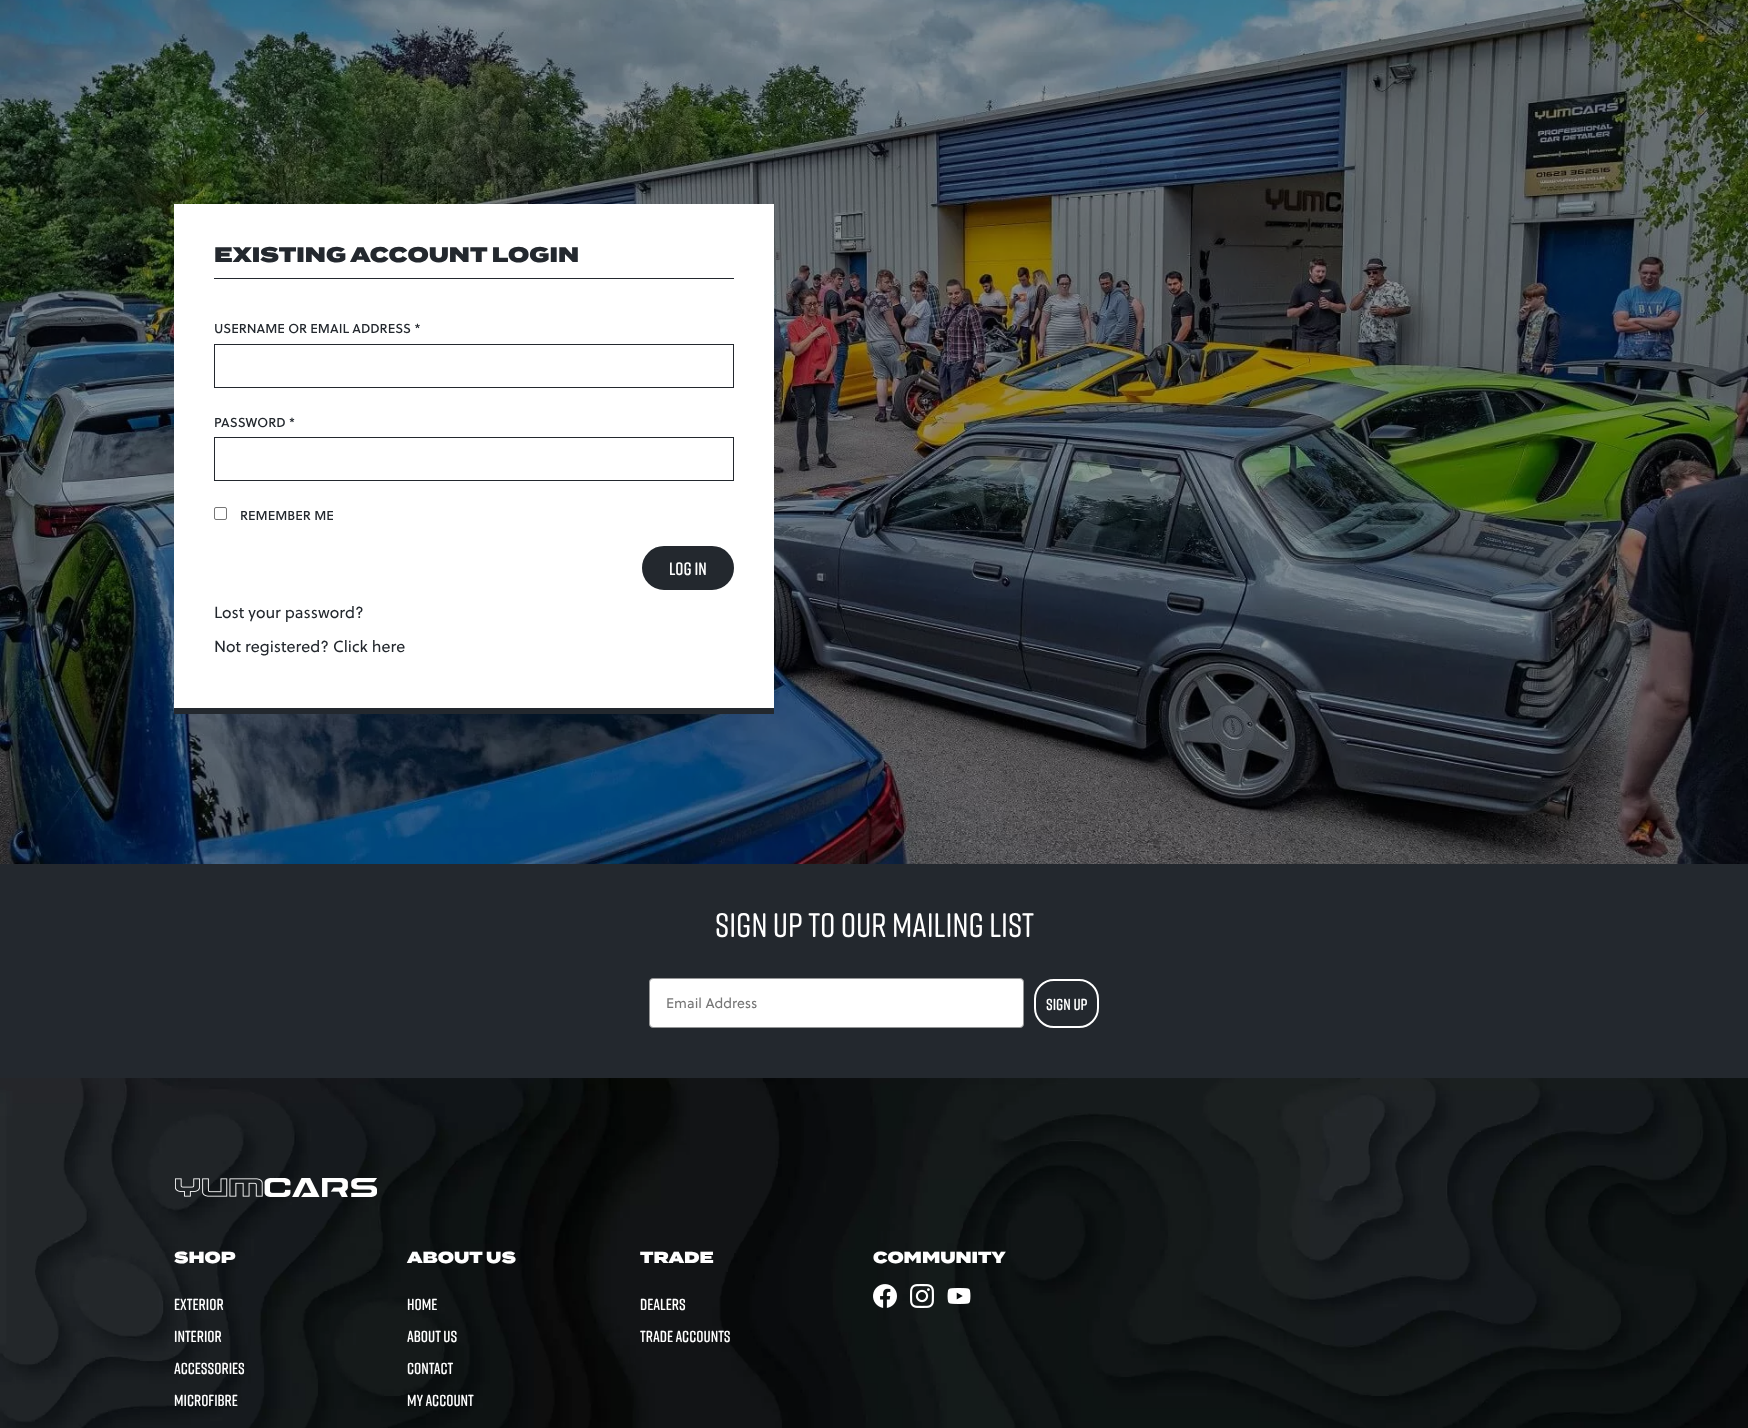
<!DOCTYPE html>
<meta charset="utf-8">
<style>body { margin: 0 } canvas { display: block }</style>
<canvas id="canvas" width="1748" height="1428"></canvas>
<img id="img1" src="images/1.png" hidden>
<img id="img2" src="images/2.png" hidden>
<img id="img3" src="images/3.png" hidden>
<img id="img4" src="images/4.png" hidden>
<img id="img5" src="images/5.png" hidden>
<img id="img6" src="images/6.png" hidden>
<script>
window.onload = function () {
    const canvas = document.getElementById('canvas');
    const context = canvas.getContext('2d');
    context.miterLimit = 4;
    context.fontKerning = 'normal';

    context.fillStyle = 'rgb(255, 255, 255)';
    context.fillRect(0, 0, 1748, 1428);
    context.drawImage(document.getElementById('img1'), 0, 0, 1748, 864);
    context.fillRect(174, 204, 600, 504);
    context.fillStyle = 'rgb(35, 40, 46)';
    context.fillRect(174, 708, 600, 6);
    context.fillRect(214, 278, 520, 1);
    context.strokeStyle = 'rgb(35, 40, 46)';
    context.strokeRect(214.5, 344.5, 519, 43);
    context.strokeRect(214.5, 437.5, 519, 43);
    context.beginPath();
    context.roundRect(214.5, 507.5, 12, 12, 1.5);
    context.strokeStyle = 'rgb(118, 118, 118)';
    context.stroke();
    context.beginPath();
    context.roundRect(643, 547, 90, 42, 21);
    context.fill();
    context.strokeStyle = 'rgb(35, 40, 46)';
    context.lineWidth = 2;
    context.stroke();
    context.fillRect(0, 864, 1748, 214);
    context.fillStyle = 'rgb(255, 255, 255)';
    context.beginPath();
    context.roundRect(649.5, 978.5, 374, 49, 3.5);
    context.fill();
    context.strokeStyle = 'rgb(148, 149, 150)';
    context.lineWidth = 1;
    context.stroke();
    context.beginPath();
    context.roundRect(1035, 980, 63, 47, 19);
    context.strokeStyle = 'rgb(255, 255, 255)';
    context.lineWidth = 2;
    context.stroke();
    context.drawImage(document.getElementById('img2'), 0, 1078, 1748, 350);
    context.drawImage(document.getElementById('img3'), 175, 1178, 202, 19);
    context.drawImage(document.getElementById('img4'), 873, 1284, 24, 24);
    context.drawImage(document.getElementById('img5'), 910, 1284, 24, 24);
    context.drawImage(document.getElementById('img6'), 947, 1288, 24, 16);
    context.font = '900 21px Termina';
    context.fillStyle = 'rgb(35, 40, 46)';
    context.fillText('EXISTING ACCOUNT LOGIN', 214, 262);
    context.font = '13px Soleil';
    context.fillText('USERNAME OR EMAIL ADDRESS *', 214, 333);
    context.fillText('PASSWORD *', 214, 427);
    context.fillText('REMEMBER ME', 240, 520);
    context.font = '600 18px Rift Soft';
    context.fillStyle = 'rgb(255, 255, 255)';
    context.fillText('LOG IN', 669, 575);
    context.font = '16px "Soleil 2"';
    context.fillStyle = 'rgb(35, 40, 46)';
    context.fillText('Lost your password?', 214, 618);
    context.fillText('Not registered? Click here', 214, 652);
    context.font = '500 34px Rift Soft';
    context.fillStyle = 'rgb(255, 255, 255)';
    context.fillText('SIGN UP TO OUR MAILING LIST', 715, 937);
    context.font = '14px "Soleil 2"';
    context.fillStyle = 'rgb(118, 118, 118)';
    context.fillText('Email Address', 666, 1008);
    context.font = '600 16px Rift Soft';
    context.fillStyle = 'rgb(255, 255, 255)';
    context.fillText('SIGN UP', 1046, 1010);
    context.font = '900 16px Termina';
    context.fillText('SHOP', 174, 1263);
    context.font = '600 16px Rift Soft';
    context.fillText('Exterior', 174, 1310);
    context.fillText('Interior', 174, 1342);
    context.fillText('Accessories', 174, 1374);
    context.fillText('Microfibre', 174, 1406);
    context.font = '900 16px Termina';
    context.fillText('ABOUT US', 407, 1263);
    context.font = '600 16px Rift Soft';
    context.fillText('Home', 407, 1310);
    context.fillText('About Us', 407, 1342);
    context.fillText('Contact', 407, 1374);
    context.fillText('My Account', 407, 1406);
    context.font = '900 16px Termina';
    context.fillText('TRADE', 640, 1263);
    context.font = '600 16px Rift Soft';
    context.fillText('Dealers', 640, 1310);
    context.fillText('Trade Accounts', 640, 1342);
    context.font = '900 16px Termina';
    context.fillText('COMMUNITY', 873, 1263);
};
</script>
